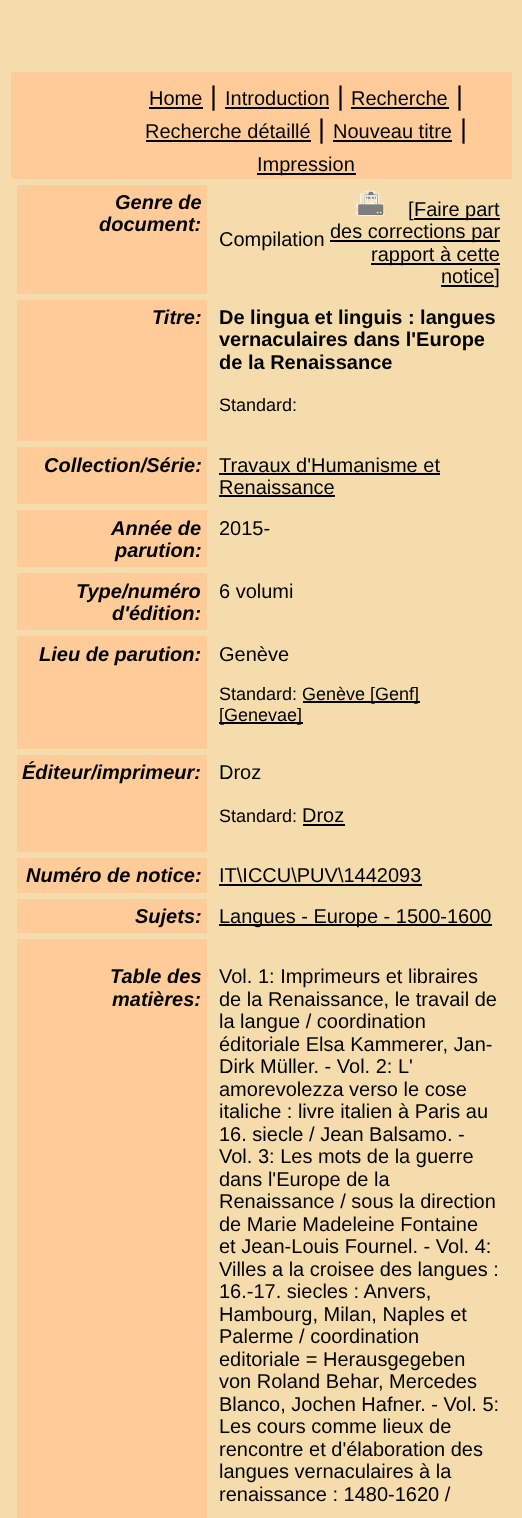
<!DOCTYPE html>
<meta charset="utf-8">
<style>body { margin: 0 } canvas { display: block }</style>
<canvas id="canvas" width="522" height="1518"></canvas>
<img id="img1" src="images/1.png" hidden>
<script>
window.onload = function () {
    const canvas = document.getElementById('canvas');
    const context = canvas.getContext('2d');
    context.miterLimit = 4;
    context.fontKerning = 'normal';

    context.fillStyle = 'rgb(245, 220, 173)';
    context.fillRect(0, 0, 522, 1518);
    context.fillStyle = 'rgb(255, 204, 153)';
    context.fillRect(11, 72, 501, 107);
    context.fillStyle = 'rgb(0, 0, 0)';
    context.fillRect(149, 107, 54, 2);
    context.fillRect(225, 107, 104, 2);
    context.fillRect(351, 107, 98, 2);
    context.fillRect(146, 140, 165, 2);
    context.fillRect(333, 140, 119, 2);
    context.fillRect(257, 173, 99, 2);
    context.fillStyle = 'rgb(255, 204, 153)';
    context.fillRect(17, 185, 190, 109);
    context.drawImage(document.getElementById('img1'), 355, 190, 30, 26);
    context.fillStyle = 'rgb(0, 0, 0)';
    context.fillRect(414, 218, 86, 2);
    context.fillRect(330, 240, 170, 2);
    context.fillRect(371, 263, 129, 2);
    context.fillRect(441, 285, 53, 2);
    context.fillStyle = 'rgb(255, 204, 153)';
    context.fillRect(17, 300, 190, 141);
    context.fillRect(17, 447, 190, 57);
    context.fillStyle = 'rgb(0, 0, 0)';
    context.fillRect(219, 473, 221, 2);
    context.fillRect(219, 495, 116, 2);
    context.fillStyle = 'rgb(255, 204, 153)';
    context.fillRect(17, 510, 190, 57);
    context.fillRect(17, 573, 190, 57);
    context.fillRect(17, 636, 190, 113);
    context.fillStyle = 'rgb(0, 0, 0)';
    context.fillRect(303, 701, 117, 2);
    context.fillRect(219, 722, 84, 2);
    context.fillStyle = 'rgb(255, 204, 153)';
    context.fillRect(17, 755, 190, 97);
    context.fillStyle = 'rgb(0, 0, 0)';
    context.fillRect(303, 824, 42, 2);
    context.fillStyle = 'rgb(255, 204, 153)';
    context.fillRect(17, 858, 190, 35);
    context.fillStyle = 'rgb(0, 0, 0)';
    context.fillRect(219, 884, 203, 2);
    context.fillStyle = 'rgb(255, 204, 153)';
    context.fillRect(17, 899, 190, 34);
    context.fillStyle = 'rgb(0, 0, 0)';
    context.fillRect(219, 924, 273, 2);
    context.fillStyle = 'rgb(255, 204, 153)';
    context.fillRect(17, 939, 190, 579);
    context.font = '20px Liberation Sans';
    context.fillStyle = 'rgb(0, 0, 0)';
    context.fillText('Home', 149, 105);
    context.font = '27px Liberation Sans';
    context.fillText('|', 210, 105);
    context.font = '20px Liberation Sans';
    context.fillText('Introduction', 225, 105);
    context.font = '27px Liberation Sans';
    context.fillText('|', 337, 105);
    context.font = '20px Liberation Sans';
    context.fillText('Recherche', 351, 105);
    context.font = '27px Liberation Sans';
    context.fillText('|', 456, 105);
    context.font = '20px Liberation Sans';
    context.fillText('Recherche détaillé', 145, 138);
    context.font = '27px Liberation Sans';
    context.fillText('|', 318, 138);
    context.font = '20px Liberation Sans';
    context.fillText('Nouveau titre', 333, 138);
    context.font = '27px Liberation Sans';
    context.fillText('|', 460, 138);
    context.font = '20px Liberation Sans';
    context.fillText('Impression', 257, 171);
    context.font = 'italic bold 20px Liberation Sans';
    context.fillText('Genre de', 115, 209);
    context.fillText('document:', 99, 231);
    context.font = '20px Liberation Sans';
    context.fillText('Compilation', 219, 246);
    context.fillText('[', 408, 216);
    context.fillText('Faire part', 414, 216);
    context.fillText('des corrections par', 330, 238);
    context.fillText('rapport à cette', 371, 261);
    context.fillText('notice]', 441, 283);
    context.font = 'italic bold 20px Liberation Sans';
    context.fillText('Titre:', 152, 324);
    context.font = 'bold 20px Liberation Sans';
    context.fillText('De lingua et linguis : langues', 219, 324);
    context.fillText('vernaculaires dans l\'Europe', 219, 346);
    context.fillText('de la Renaissance', 219, 369);
    context.font = '18px Liberation Sans';
    context.fillText('Standard:', 219, 411);
    context.font = 'italic bold 20px Liberation Sans';
    context.fillText('Collection/Série:', 44, 472);
    context.font = '20px Liberation Sans';
    context.fillText('Travaux d\'Humanisme et', 219, 472);
    context.fillText('Renaissance', 219, 494);
    context.font = 'italic bold 20px Liberation Sans';
    context.fillText('Année de', 111, 535);
    context.fillText('parution:', 115, 557);
    context.font = '20px Liberation Sans';
    context.fillText('2015-', 219, 535);
    context.font = 'italic bold 20px Liberation Sans';
    context.fillText('Type/numéro', 76, 598);
    context.fillText('d\'édition:', 112, 620);
    context.font = '20px Liberation Sans';
    context.fillText('6 volumi', 219, 598);
    context.font = 'italic bold 20px Liberation Sans';
    context.fillText('Lieu de parution:', 39, 661);
    context.font = '20px Liberation Sans';
    context.fillText('Genève', 219, 661);
    context.font = '18px Liberation Sans';
    context.fillText('Standard:', 219, 700);
    context.fillText('Genève [Genf]', 302, 700);
    context.fillText('[Genevae]', 219, 721);
    context.font = 'italic bold 20px Liberation Sans';
    context.fillText('Éditeur/imprimeur:', 22, 779);
    context.font = '20px Liberation Sans';
    context.fillText('Droz', 219, 779);
    context.font = '18px Liberation Sans';
    context.fillText('Standard:', 219, 822);
    context.font = '20px Liberation Sans';
    context.fillText('Droz', 302, 822);
    context.font = 'italic bold 20px Liberation Sans';
    context.fillText('Numéro de notice:', 26, 882);
    context.font = '20px Liberation Sans';
    context.fillText('IT\\ICCU\\PUV\\1442093', 219, 882);
    context.font = 'italic bold 20px Liberation Sans';
    context.fillText('Sujets:', 135, 923);
    context.font = '20px Liberation Sans';
    context.fillText('Langues - Europe - 1500-1600', 219, 923);
    context.font = 'italic bold 20px Liberation Sans';
    context.fillText('Table des', 110, 983);
    context.fillText('matières:', 112, 1006);
    context.font = '20px Liberation Sans';
    context.fillText('Vol. 1: Imprimeurs et libraires', 219, 983);
    context.fillText('de la Renaissance, le travail de', 219, 1006);
    context.fillText('la langue / coordination', 219, 1028);
    context.fillText('éditoriale Elsa Kammerer, Jan-', 219, 1051);
    context.fillText('Dirk Müller. - Vol. 2: L\'', 219, 1073);
    context.fillText('amorevolezza verso le cose', 219, 1096);
    context.fillText('italiche : livre italien à Paris au', 219, 1118);
    context.fillText('16. siecle / Jean Balsamo. -', 219, 1141);
    context.fillText('Vol. 3: Les mots de la guerre', 219, 1163);
    context.fillText('dans l\'Europe de la', 219, 1186);
    context.fillText('Renaissance / sous la direction', 219, 1208);
    context.fillText('de Marie Madeleine Fontaine', 219, 1231);
    context.fillText('et Jean-Louis Fournel. - Vol. 4:', 219, 1253);
    context.fillText('Villes a la croisee des langues :', 219, 1276);
    context.fillText('16.-17. siecles : Anvers,', 219, 1298);
    context.fillText('Hambourg, Milan, Naples et', 219, 1321);
    context.fillText('Palerme / coordination', 219, 1343);
    context.fillText('editoriale = Herausgegeben', 219, 1366);
    context.fillText('von Roland Behar, Mercedes', 219, 1388);
    context.fillText('Blanco, Jochen Hafner. - Vol. 5:', 219, 1411);
    context.fillText('Les cours comme lieux de', 219, 1433);
    context.fillText('rencontre et d\'élaboration des', 219, 1456);
    context.fillText('langues vernaculaires à la', 219, 1478);
    context.fillText('renaissance : 1480-1620 /', 219, 1501);
};
</script>
